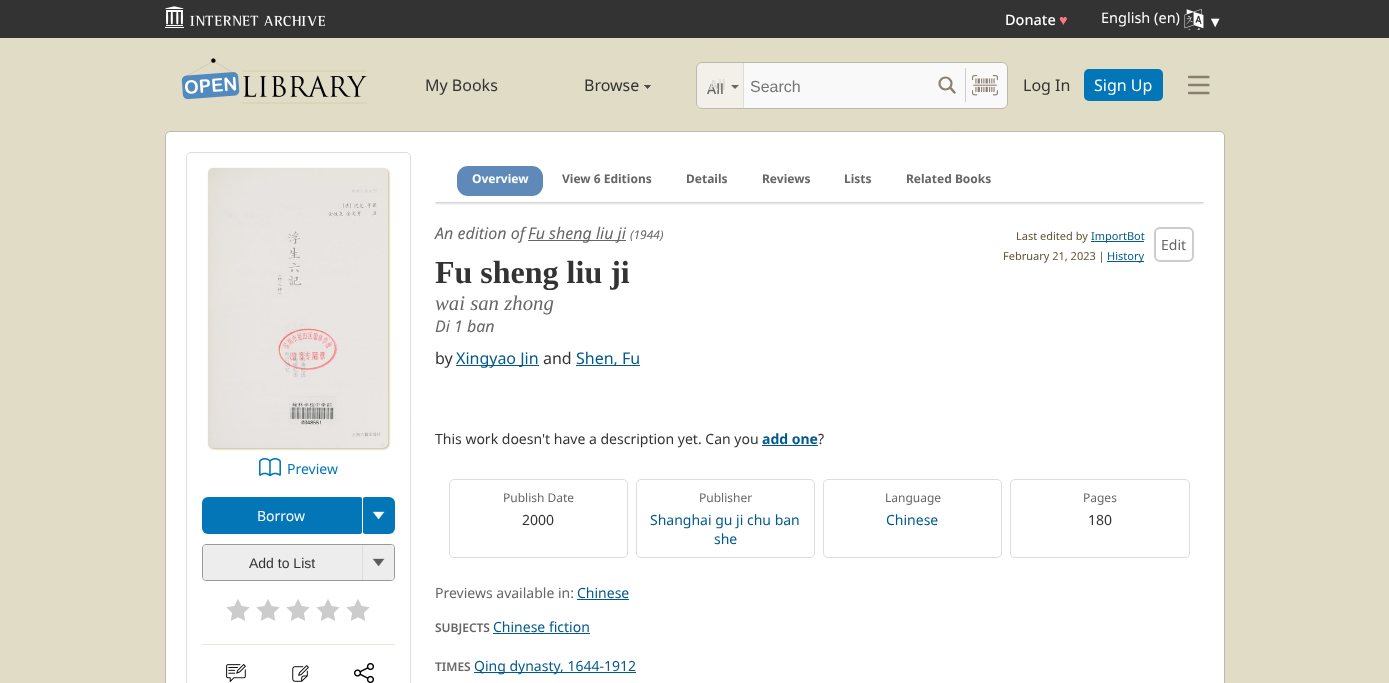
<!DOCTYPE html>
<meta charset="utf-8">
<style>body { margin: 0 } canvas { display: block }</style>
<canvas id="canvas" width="1389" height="683"></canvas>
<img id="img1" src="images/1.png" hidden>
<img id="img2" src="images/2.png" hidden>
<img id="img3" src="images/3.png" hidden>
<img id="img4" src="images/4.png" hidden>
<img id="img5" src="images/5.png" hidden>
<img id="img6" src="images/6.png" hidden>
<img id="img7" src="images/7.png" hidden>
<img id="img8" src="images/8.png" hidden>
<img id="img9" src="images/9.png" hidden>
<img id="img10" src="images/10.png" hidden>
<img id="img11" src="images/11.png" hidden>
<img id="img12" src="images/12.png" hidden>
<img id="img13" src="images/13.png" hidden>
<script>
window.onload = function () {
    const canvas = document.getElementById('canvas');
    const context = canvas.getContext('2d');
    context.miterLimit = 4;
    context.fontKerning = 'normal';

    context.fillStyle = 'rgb(225, 220, 197)';
    context.fillRect(0, 0, 1389, 683);
    context.fillStyle = 'rgb(51, 51, 51)';
    context.fillRect(0, 0, 1389, 38);
    context.drawImage(document.getElementById('img1'), 165, 6, 160, 22);
    context.drawImage(document.getElementById('img2'), 1184, 9, 20, 21);
    context.drawImage(document.getElementById('img3'), 181, 58, 186, 46);
    context.drawImage(document.getElementById('img4'), 644, 85, 7, 4);
    context.fillStyle = 'rgb(249, 249, 249)';
    context.beginPath();
    context.roundRect(696.5, 62.5, 311, 46, 5.5);
    context.fill();
    context.strokeStyle = 'rgb(186, 187, 174)';
    context.stroke();
    context.fillStyle = 'rgba(226, 220, 197, 0.32)';
    context.beginPath();
    context.roundRect(697, 63, 47, 45, [3, 0, 0, 3]);
    context.fill();
    context.fillStyle = 'rgb(221, 221, 221)';
    context.fillRect(743, 63, 1, 45);
    context.fillStyle = 'rgb(102, 102, 102)';
    context.beginPath();
    context.moveTo(731, 85);
    context.lineTo(739, 85);
    context.lineTo(735, 89);
    context.closePath();
    context.fill();
    context.beginPath();
    context.arc(945.5, 83.5, 6, 0, 2 * Math.PI);
    context.strokeStyle = 'rgb(138, 127, 113)';
    context.lineWidth = 2.2;
    context.stroke();
    context.beginPath();
    context.moveTo(950.5, 88);
    context.lineTo(954.5, 92.5);
    context.lineWidth = 2.5;
    context.lineCap = 'round';
    context.lineJoin = 'round';
    context.stroke();
    context.fillStyle = 'rgb(204, 204, 204)';
    context.fillRect(965, 68, 1, 34);
    context.drawImage(document.getElementById('img5'), 972, 75, 26, 21);
    context.fillStyle = 'rgb(3, 118, 184)';
    context.beginPath();
    context.roundRect(1084, 69, 79, 32, 5);
    context.fill();
    context.save();
    context.beginPath();
    context.moveTo(1187.5, 74.5);
    context.lineTo(1209.5, 74.5);
    context.lineTo(1209.5, 96.5);
    context.lineTo(1187.5, 96.5);
    context.closePath();
    context.clip();
    context.beginPath();
    context.moveTo(1189, 93);
    context.lineTo(1209, 93);
    context.moveTo(1189, 85);
    context.lineTo(1209, 85);
    context.moveTo(1189, 77);
    context.lineTo(1209, 77);
    context.lineWidth = 2.4;
    context.lineJoin = 'miter';
    context.stroke();
    context.restore();
    context.fillStyle = 'rgb(255, 255, 255)';
    context.beginPath();
    context.roundRect(165.5, 131.5, 1059, 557, 4.5);
    context.fill();
    context.strokeStyle = 'rgb(186, 187, 174)';
    context.lineWidth = 1;
    context.lineJoin = 'miter';
    context.stroke();
    context.beginPath();
    context.roundRect(186.5, 152.5, 224, 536, 4.5);
    context.strokeStyle = 'rgb(221, 221, 221)';
    context.stroke();
    context.fillStyle = 'rgb(195, 182, 131)';
    context.filter = 'blur(1px)';
    context.beginPath();
    context.roundRect(209, 169, 180, 280, 5);
    context.fill();
    context.filter = 'none';
    context.drawImage(document.getElementById('img6'), 208, 168, 180, 280);
    context.drawImage(document.getElementById('img7'), 259, 458, 22, 18);
    context.fillStyle = 'rgb(3, 118, 184)';
    context.beginPath();
    context.roundRect(202, 497, 160, 37, [6, 2, 2, 6]);
    context.fill();
    context.beginPath();
    context.roundRect(363, 497, 32, 37, [2, 6, 6, 2]);
    context.fill();
    context.drawImage(document.getElementById('img8'), 372, 511, 13, 9);
    context.beginPath();
    context.roundRect(202.5, 544.5, 192, 36, 3.5);
    context.strokeStyle = 'rgb(153, 153, 153)';
    context.stroke();
    context.fillStyle = 'rgb(237, 237, 237)';
    context.beginPath();
    context.roundRect(203, 545, 159, 35, [3, 0, 0, 3]);
    context.fill();
    context.beginPath();
    context.roundRect(362, 545, 32, 35, [0, 3, 3, 0]);
    context.fill();
    context.fillStyle = 'rgb(221, 221, 221)';
    context.fillRect(362, 545, 1, 35);
    context.drawImage(document.getElementById('img9'), 372, 558, 13, 9);
    context.drawImage(document.getElementById('img10'), 226, 599, 144, 22);
    context.fillStyle = 'rgb(236, 232, 217)';
    context.fillRect(202, 644, 193, 1);
    context.drawImage(document.getElementById('img11'), 226, 664, 20, 18);
    context.drawImage(document.getElementById('img12'), 292, 665, 17, 17);
    context.drawImage(document.getElementById('img13'), 354, 663, 20, 20);
    context.save();
    context.beginPath();
    context.rect(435, 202, 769, 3);
    context.clip();
    context.fillStyle = 'rgba(0, 0, 0, 0.25)';
    context.filter = 'blur(1.5px)';
    context.beginPath();
    context.rect(435, 155, 769, 48);
    context.fill();
    context.filter = 'none';
    context.restore();
    context.fillStyle = 'rgb(95, 137, 185)';
    context.beginPath();
    context.roundRect(457, 166, 86, 30, 11);
    context.fill();
    context.fillStyle = 'rgb(102, 102, 102)';
    context.fillRect(528, 240, 98, 1);
    context.fillStyle = 'rgb(2, 89, 139)';
    context.fillRect(456, 365, 83, 1);
    context.fillRect(576, 365, 64, 1);
    context.fillRect(1091, 241, 53, 1);
    context.fillRect(1107, 261, 37, 1);
    context.beginPath();
    context.roundRect(1155, 228, 38, 33, 5);
    context.strokeStyle = 'rgb(204, 204, 204)';
    context.lineWidth = 2;
    context.stroke();
    context.fillRect(762, 445, 56, 1);
    context.beginPath();
    context.roundRect(449.5, 479.5, 178, 78, 4.5);
    context.strokeStyle = 'rgb(221, 221, 221)';
    context.lineWidth = 1;
    context.stroke();
    context.beginPath();
    context.roundRect(636.5, 479.5, 178, 78, 4.5);
    context.stroke();
    context.beginPath();
    context.roundRect(823.5, 479.5, 178, 78, 4.5);
    context.stroke();
    context.beginPath();
    context.roundRect(1010.5, 479.5, 179, 78, 4.5);
    context.stroke();
    context.fillRect(577, 599, 52, 1);
    context.fillRect(493, 633, 97, 1);
    context.fillRect(474, 672, 162, 1);
    context.font = '500 14.5px Noto Sans';
    context.fillStyle = 'rgb(255, 255, 255)';
    context.fillText('Donate', 1005, 25);
    context.font = '14.5px Liberation Sans';
    context.fillStyle = 'rgb(255, 122, 126)';
    context.fillText('♥', 1059, 25);
    context.font = '14.5px Noto Sans';
    context.fillStyle = 'rgb(255, 255, 255)';
    context.fillText('English (en)', 1101, 23);
    context.font = '14.5px Liberation Sans';
    context.fillText('▼', 1208, 27);
    context.font = '16px Noto Sans';
    context.fillStyle = 'rgb(51, 51, 51)';
    context.fillText('My Books', 425, 91);
    context.fillText('Browse', 584, 91);
    context.font = '500 14px Noto Sans';
    context.fillStyle = 'rgb(102, 102, 102)';
    context.fillText('All', 707, 94);
    context.fillStyle = 'rgb(218, 217, 210)';
    context.fillText('All', 709, 90);
    context.font = '16px Liberation Sans';
    context.fillStyle = 'rgb(117, 117, 117)';
    context.fillText('Search', 750, 92);
    context.font = '16px Noto Sans';
    context.fillStyle = 'rgb(51, 51, 51)';
    context.fillText('Log In', 1023, 91);
    context.fillStyle = 'rgb(255, 255, 255)';
    context.fillText('Sign Up', 1094, 91);
    context.font = '14px Noto Sans';
    context.fillStyle = 'rgb(3, 118, 184)';
    context.fillText('Preview', 287, 474);
    context.fillStyle = 'rgb(255, 255, 255)';
    context.fillText('Borrow', 257, 521);
    context.font = '14px Liberation Sans';
    context.fillStyle = 'rgb(51, 51, 51)';
    context.fillText('Add to List', 249, 568);
    context.font = 'bold 12px Noto Sans';
    context.fillStyle = 'rgb(255, 255, 255)';
    context.fillText('Overview', 472, 183);
    context.fillStyle = 'rgb(102, 102, 102)';
    context.fillText('View 6 Editions', 562, 183);
    context.fillText('Details', 686, 183);
    context.fillText('Reviews', 762, 183);
    context.fillText('Lists', 844, 183);
    context.fillText('Related Books', 906, 183);
    context.font = 'italic 16px Noto Sans';
    context.fillText('An edition of', 435, 239);
    context.fillText('Fu sheng liu ji', 528, 239);
    context.font = 'italic 12px Noto Sans';
    context.fillText('(1944)', 630, 239);
    context.font = 'bold 32px Liberation Serif';
    context.fillStyle = 'rgb(51, 51, 51)';
    context.fillText('Fu sheng liu ji', 435, 283);
    context.font = 'italic 20.75px Liberation Serif';
    context.fillStyle = 'rgb(102, 102, 102)';
    context.fillText('wai san zhong', 435, 310);
    context.font = 'italic 16px Noto Sans';
    context.fillText('Di 1 ban', 435, 332);
    context.font = '16px Noto Sans';
    context.fillStyle = 'rgb(51, 51, 51)';
    context.fillText('by', 435, 364);
    context.fillStyle = 'rgb(2, 89, 139)';
    context.fillText('Xingyao Jin', 456, 364);
    context.fillStyle = 'rgb(51, 51, 51)';
    context.fillText('and', 543, 364);
    context.fillStyle = 'rgb(2, 89, 139)';
    context.fillText('Shen, Fu', 576, 364);
    context.font = '11px Noto Sans';
    context.fillStyle = 'rgb(97, 81, 50)';
    context.fillText('Last edited by', 1016, 240);
    context.fillStyle = 'rgb(2, 89, 139)';
    context.fillText('ImportBot', 1091, 240);
    context.fillStyle = 'rgb(97, 81, 50)';
    context.fillText('February 21, 2023 |', 1003, 260);
    context.fillStyle = 'rgb(2, 89, 139)';
    context.fillText('History', 1107, 260);
    context.font = '14px Noto Sans';
    context.fillStyle = 'rgb(102, 102, 102)';
    context.fillText('Edit', 1161, 250);
    context.fillStyle = 'rgb(51, 51, 51)';
    context.fillText('This work doesn\'t have a description yet. Can you', 435, 444);
    context.font = 'bold 14px Noto Sans';
    context.fillStyle = 'rgb(2, 89, 139)';
    context.fillText('add one', 762, 444);
    context.font = '14px Noto Sans';
    context.fillStyle = 'rgb(51, 51, 51)';
    context.fillText('?', 818, 444);
    context.font = '12px Noto Sans';
    context.fillStyle = 'rgb(102, 102, 102)';
    context.fillText('Publish Date', 503, 502);
    context.font = '14px Noto Sans';
    context.fillStyle = 'rgb(51, 51, 51)';
    context.fillText('2000', 522, 525);
    context.font = '12px Noto Sans';
    context.fillStyle = 'rgb(102, 102, 102)';
    context.fillText('Publisher', 699, 502);
    context.font = '14px Noto Sans';
    context.fillStyle = 'rgb(2, 89, 139)';
    context.fillText('Shanghai gu ji chu ban', 650, 525);
    context.fillText('she', 714, 544);
    context.font = '12px Noto Sans';
    context.fillStyle = 'rgb(102, 102, 102)';
    context.fillText('Language', 885, 502);
    context.font = '14px Noto Sans';
    context.fillStyle = 'rgb(2, 89, 139)';
    context.fillText('Chinese', 886, 525);
    context.font = '12px Noto Sans';
    context.fillStyle = 'rgb(102, 102, 102)';
    context.fillText('Pages', 1083, 502);
    context.font = '14px Noto Sans';
    context.fillStyle = 'rgb(51, 51, 51)';
    context.fillText('180', 1088, 525);
    context.fillStyle = 'rgb(102, 102, 102)';
    context.fillText('Previews available in:', 435, 598);
    context.fillStyle = 'rgb(2, 89, 139)';
    context.fillText('Chinese', 577, 598);
    context.font = '600 12px Noto Sans';
    context.fillStyle = 'rgb(102, 102, 102)';
    context.fillText('SUBJECTS', 435, 632);
    context.font = '14px Noto Sans';
    context.fillStyle = 'rgb(2, 89, 139)';
    context.fillText('Chinese fiction', 493, 632);
    context.font = '600 12px Noto Sans';
    context.fillStyle = 'rgb(102, 102, 102)';
    context.fillText('TIMES', 435, 671);
    context.font = '14px Noto Sans';
    context.fillStyle = 'rgb(2, 89, 139)';
    context.fillText('Qing dynasty, 1644-1912', 474, 671);
};
</script>
